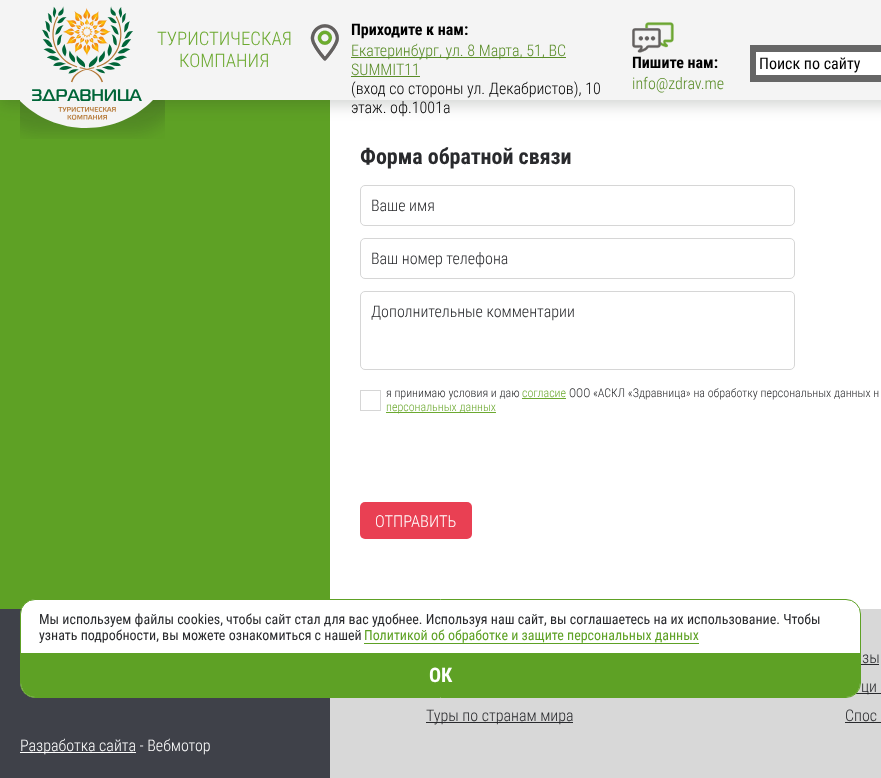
<!DOCTYPE html>
<meta charset="utf-8">
<style>body { margin: 0 } canvas { display: block }</style>
<canvas id="canvas" width="881" height="778"></canvas>
<img id="img1" src="images/2.png" hidden>
<img id="img2" src="images/3.png" hidden>
<img id="img3" src="images/1.png" hidden>
<script>
window.onload = function () {
    const canvas = document.getElementById('canvas');
    const context = canvas.getContext('2d');
    context.miterLimit = 4;
    context.fontKerning = 'normal';

    context.fillStyle = 'rgb(255, 255, 255)';
    context.fillRect(0, 0, 881, 778);
    context.fillStyle = 'rgb(94, 161, 37)';
    context.fillRect(0, 100, 330, 509);
    context.fillStyle = 'rgba(37, 44, 33, 0.2)';
    context.filter = 'blur(7.5px)';
    context.beginPath();
    context.rect(0, 5, 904, 100);
    context.fill();
    context.filter = 'none';
    context.fillStyle = 'rgb(244, 244, 244)';
    context.fillRect(0, 0, 881, 100);
    context.save();
    context.beginPath();
    context.rect(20, 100, 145, 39);
    context.clip();
    context.fillStyle = 'rgba(37, 44, 33, 0.2)';
    context.filter = 'blur(7.5px)';
    context.beginPath();
    context.roundRect(-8, 39, 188, 94, 94);
    context.fill();
    context.filter = 'none';
    context.restore();
    context.drawImage(document.getElementById('img1'), 310, 24, 29, 37);
    context.fillStyle = 'rgb(89, 140, 39)';
    context.fillRect(351, 57, 215, 1);
    context.fillRect(351, 76, 69, 1);
    context.drawImage(document.getElementById('img2'), 632, 22, 42, 31);
    context.fillStyle = 'rgb(102, 102, 102)';
    context.fillRect(750, 45, 131, 37);
    context.fillStyle = 'rgb(255, 255, 255)';
    context.fillRect(756, 52, 125, 23);
    context.beginPath();
    context.roundRect(360.5, 185.5, 434, 40, 4.5);
    context.strokeStyle = 'rgb(214, 214, 214)';
    context.stroke();
    context.beginPath();
    context.roundRect(360.5, 238.5, 434, 40, 4.5);
    context.stroke();
    context.beginPath();
    context.roundRect(360.5, 291.5, 434, 78, 4.5);
    context.stroke();
    context.strokeRect(360.5, 390.5, 20, 20);
    context.fillStyle = 'rgb(108, 169, 48)';
    context.fillRect(522, 398, 44, 1);
    context.fillRect(386, 412, 110, 1);
    context.fillStyle = 'rgb(233, 64, 83)';
    context.beginPath();
    context.roundRect(360, 502, 112, 37, 5);
    context.fill();
    context.fillStyle = 'rgb(216, 216, 216)';
    context.fillRect(330, 609, 551, 169);
    context.fillStyle = 'rgb(41, 42, 45)';
    context.fillRect(856, 693, 25, 1);
    context.fillStyle = 'rgb(63, 65, 73)';
    context.fillRect(0, 609, 330, 169);
    context.fillStyle = 'rgb(255, 255, 255)';
    context.beginPath();
    context.roundRect(20.5, 599.5, 840, 98, 14.5);
    context.fill();
    context.strokeStyle = 'rgb(94, 161, 37)';
    context.stroke();
    context.fillStyle = 'rgb(94, 161, 37)';
    context.fillRect(364, 643, 335, 1);
    context.beginPath();
    context.roundRect(21, 653, 839, 44, [0, 0, 14, 14]);
    context.fill();
    context.fillStyle = 'rgb(41, 42, 45)';
    context.fillRect(426, 722, 147, 1);
    context.fillRect(861, 664, 18, 1);
    context.fillRect(845, 722, 36, 1);
    context.fillStyle = 'rgb(255, 255, 255)';
    context.fillRect(20, 752, 116, 1);
    context.font = '300 18.75px Roboto Condensed';
    context.fillStyle = 'rgb(108, 169, 48)';
    context.fillText('ТУРИСТИЧЕСКАЯ', 157, 45);
    context.save();
    context.beginPath();
    context.rect(20, 100, 145, 39);
    context.clip();
    context.fillStyle = 'rgb(244, 244, 244)';
    context.beginPath();
    context.moveTo(-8, 34);
    context.lineTo(180, 34);
    context.bezierCurveTo(180, 86, 138, 128, 86, 128);
    context.bezierCurveTo(34, 128, -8, 86, -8, 34);
    context.closePath();
    context.fill();
    context.restore();
    context.drawImage(document.getElementById('img3'), 32, 6, 110, 114);
    context.fillText('КОМПАНИЯ', 179, 67);
    context.font = 'bold 16px Roboto Condensed';
    context.fillStyle = 'rgb(0, 0, 0)';
    context.fillText('Приходите к нам:', 351, 35);
    context.font = '300 16px Roboto Condensed';
    context.fillStyle = 'rgb(89, 140, 39)';
    context.fillText('Екатеринбург, ул. 8 Марта, 51, BC', 351, 56);
    context.fillText('SUMMIT11', 351, 75);
    context.fillStyle = 'rgb(0, 0, 0)';
    context.fillText('(вход со стороны ул. Декабристов), 10', 351, 94);
    context.fillText('этаж. оф.1001а', 351, 113);
    context.font = 'bold 16px Roboto Condensed';
    context.fillText('Пишите нам:', 632, 68);
    context.font = '300 16px Roboto Condensed';
    context.fillStyle = 'rgb(89, 140, 39)';
    context.fillText('info@zdrav.me', 632, 89);
    context.font = '16px Roboto Condensed';
    context.fillStyle = 'rgb(0, 0, 0)';
    context.fillText('Поиск по сайту', 759, 69);
    context.font = 'bold 22px Roboto Condensed';
    context.fillStyle = 'rgb(41, 42, 45)';
    context.fillText('Форма обратной связи', 360, 164);
    context.font = '300 16px Roboto Condensed';
    context.fillText('Ваше имя', 371, 211);
    context.fillText('Ваш номер телефона', 371, 264);
    context.fillText('Дополнительные комментарии', 371, 317);
    context.font = '300 12px Roboto Condensed';
    context.fillText('я принимаю условия и даю', 386, 397);
    context.fillStyle = 'rgb(108, 169, 48)';
    context.fillText('согласие', 522, 397);
    context.fillStyle = 'rgb(41, 42, 45)';
    context.fillText('ООО «АСКЛ «Здравница» на обработку персональных данных н', 569, 397);
    context.fillStyle = 'rgb(108, 169, 48)';
    context.fillText('персональных данных', 386, 411);
    context.font = '300 16.5px Roboto Condensed';
    context.fillStyle = 'rgb(255, 255, 255)';
    context.fillText('ОТПРАВИТЬ', 375, 527);
    context.font = '14px Roboto Condensed';
    context.fillStyle = 'rgb(41, 42, 45)';
    context.fillText('Мы используем файлы cookies, чтобы сайт стал для вас удобнее. Используя наш сайт, вы соглашаетесь на их использование. Чтобы', 39, 624);
    context.fillText('узнать подробности, вы можете ознакомиться с нашей', 39, 640);
    context.fillStyle = 'rgb(94, 161, 37)';
    context.fillText('Политикой об обработке и защите персональных данных', 364, 640);
    context.font = 'bold 20px Roboto Condensed';
    context.fillStyle = 'rgb(255, 255, 255)';
    context.fillText('ОК', 429, 682);
    context.font = '300 16px Roboto Condensed';
    context.fillStyle = 'rgb(41, 42, 45)';
    context.fillText('Туры по странам мира', 426, 721);
    context.fillText('зы', 862, 663);
    context.fillText('ци', 861, 692);
    context.fillText('Спос', 845, 721);
    context.fillStyle = 'rgb(255, 255, 255)';
    context.fillText('Разработка сайта - Вебмотор', 20, 751);
};
</script>
